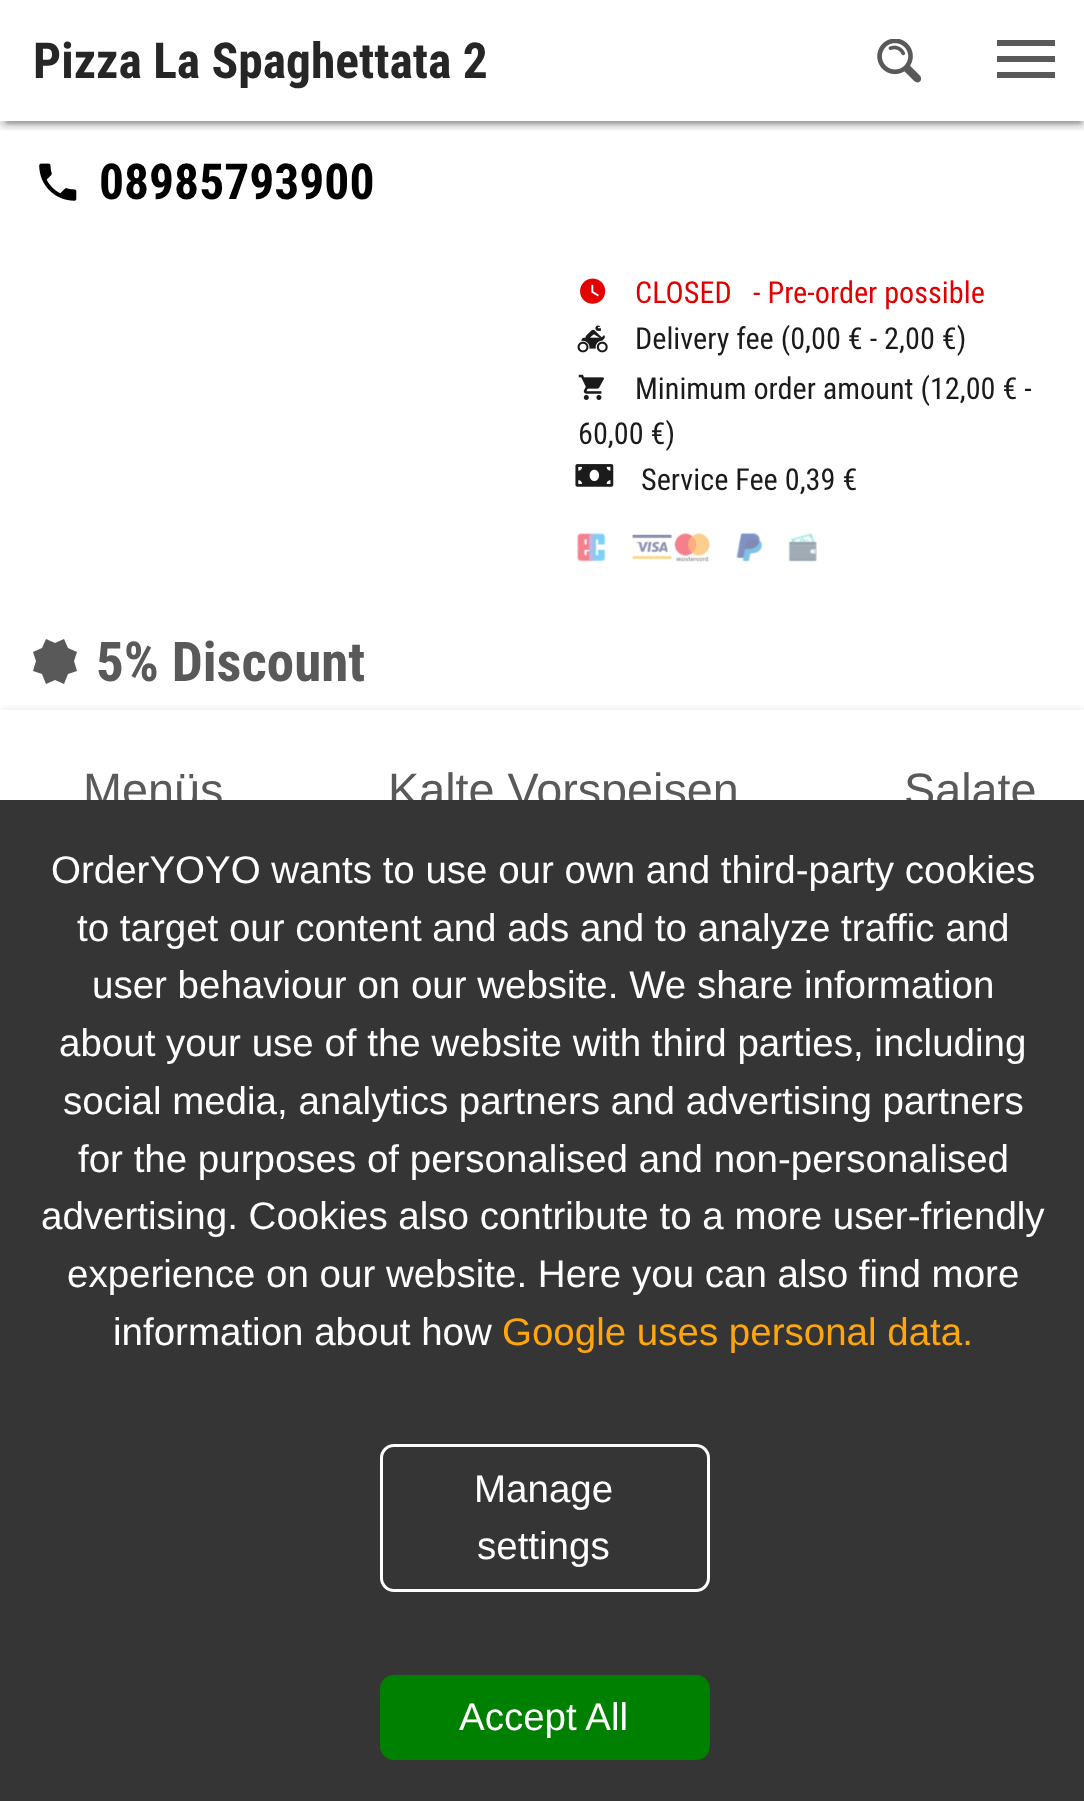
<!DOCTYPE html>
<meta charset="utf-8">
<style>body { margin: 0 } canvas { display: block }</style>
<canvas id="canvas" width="1084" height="1801"></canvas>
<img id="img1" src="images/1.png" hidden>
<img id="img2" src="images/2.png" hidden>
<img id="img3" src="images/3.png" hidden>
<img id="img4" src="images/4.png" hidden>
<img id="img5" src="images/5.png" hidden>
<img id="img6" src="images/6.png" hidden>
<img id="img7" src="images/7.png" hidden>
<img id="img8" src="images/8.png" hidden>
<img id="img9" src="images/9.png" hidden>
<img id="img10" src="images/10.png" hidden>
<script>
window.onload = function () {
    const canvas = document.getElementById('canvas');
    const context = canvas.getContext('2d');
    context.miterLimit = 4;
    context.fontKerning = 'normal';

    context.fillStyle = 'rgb(255, 255, 255)';
    context.fillRect(0, 0, 1084, 1801);
    context.save();
    context.beginPath();
    context.rect(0, 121, 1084, 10);
    context.clip();
    context.fillStyle = 'rgba(0, 0, 0, 0.12)';
    context.filter = 'blur(7px)';
    context.beginPath();
    context.rect(0, 3, 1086, 121);
    context.fill();
    context.filter = 'none';
    context.restore();
    context.save();
    context.beginPath();
    context.rect(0, 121, 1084, 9);
    context.clip();
    context.fillStyle = 'rgba(0, 0, 0, 0.14)';
    context.filter = 'blur(3px)';
    context.beginPath();
    context.rect(0, 6, 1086, 121);
    context.fill();
    context.filter = 'none';
    context.restore();
    context.save();
    context.beginPath();
    context.rect(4, 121, 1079, 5);
    context.clip();
    context.fillStyle = 'rgba(0, 0, 0, 0.2)';
    context.filter = 'blur(1.5px)';
    context.beginPath();
    context.rect(6, 14, 1075, 110);
    context.fill();
    context.filter = 'none';
    context.restore();
    context.drawImage(document.getElementById('img1'), 877, 39, 44, 44);
    context.fillStyle = 'rgb(89, 89, 89)';
    context.beginPath();
    context.moveTo(997, 40);
    context.lineTo(1055, 40);
    context.lineTo(1055, 46);
    context.lineTo(997, 46);
    context.closePath();
    context.moveTo(997, 56);
    context.lineTo(1055, 56);
    context.lineTo(1055, 62);
    context.lineTo(997, 62);
    context.closePath();
    context.moveTo(997, 72);
    context.lineTo(1055, 72);
    context.lineTo(1055, 78);
    context.lineTo(997, 78);
    context.closePath();
    context.fill();
    context.drawImage(document.getElementById('img2'), 39, 163, 38, 38);
    context.drawImage(document.getElementById('img3'), 580, 278, 26, 26);
    context.drawImage(document.getElementById('img4'), 577, 325, 31, 28);
    context.drawImage(document.getElementById('img5'), 578, 374, 26, 26);
    context.drawImage(document.getElementById('img6'), 575, 464, 39, 23);
    context.drawImage(document.getElementById('img7'), 577, 532, 29, 30);
    context.drawImage(document.getElementById('img8'), 631, 532, 79, 30);
    context.drawImage(document.getElementById('img9'), 736, 532, 27, 30);
    context.drawImage(document.getElementById('img10'), 788, 532, 29, 30);
    context.beginPath();
    context.moveTo(33, 671);
    context.lineTo(36, 661);
    context.lineTo(33, 652);
    context.lineTo(42, 648);
    context.lineTo(46, 639);
    context.lineTo(55, 643);
    context.lineTo(64, 639);
    context.lineTo(68, 648);
    context.lineTo(77, 652);
    context.lineTo(74, 661);
    context.lineTo(77, 671);
    context.lineTo(68, 674);
    context.lineTo(64, 684);
    context.lineTo(55, 680);
    context.lineTo(46, 684);
    context.lineTo(42, 674);
    context.closePath();
    context.fill();
    context.save();
    context.beginPath();
    context.rect(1, 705, 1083, 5);
    context.clip();
    context.fillStyle = 'rgba(0, 0, 0, 0.12)';
    context.filter = 'blur(7px)';
    context.beginPath();
    context.rect(0, 712, 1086, 165);
    context.fill();
    context.filter = 'none';
    context.restore();
    context.font = 'bold 49.5px Roboto Condensed';
    context.fillStyle = 'rgb(38, 38, 38)';
    context.fillText('Pizza La Spaghettata 2', 33, 78);
    context.fillStyle = 'rgb(0, 0, 0)';
    context.fillText('08985793900', 99, 199);
    context.font = '30.25px Roboto Condensed';
    context.fillStyle = 'rgb(227, 0, 1)';
    context.fillText('CLOSED', 635, 303);
    context.fillText('- Pre-order possible', 753, 303);
    context.fillStyle = 'rgb(27, 27, 27)';
    context.fillText('Delivery fee (0,00 € - 2,00 €)', 635, 349);
    context.fillText('Minimum order amount (12,00 € -', 635, 399);
    context.fillText('60,00 €)', 578, 444);
    context.fillText('Service Fee 0,39 €', 641, 490);
    context.font = 'bold 55px Roboto Condensed';
    context.fillStyle = 'rgb(89, 89, 89)';
    context.fillText('5% Discount', 96, 681);
    context.font = '46.75px Liberation Sans';
    context.fillText('Menüs', 83, 806);
    context.fillText('Kalte Vorspeisen', 388, 806);
    context.fillText('Salate', 904, 806);
    context.fillStyle = 'rgb(53, 53, 53)';
    context.fillRect(0, 800, 1084, 1001);
    context.font = '38.5px Liberation Sans';
    context.fillStyle = 'rgb(255, 255, 255)';
    context.fillText('OrderYOYO wants to use our own and third-party cookies', 51, 883);
    context.fillText('to target our content and ads and to analyze traffic and', 77, 941);
    context.fillText('user behaviour on our website. We share information', 92, 998);
    context.fillText('about your use of the website with third parties, including', 59, 1056);
    context.fillText('social media, analytics partners and advertising partners', 63, 1114);
    context.fillText('for the purposes of personalised and non-personalised', 78, 1172);
    context.fillText('advertising. Cookies also contribute to a more user-friendly', 41, 1229);
    context.fillText('experience on our website. Here you can also find more', 67, 1287);
    context.fillText('information about how', 113, 1345);
    context.fillStyle = 'rgb(255, 167, 10)';
    context.fillText('Google uses personal data.', 502, 1345);
    context.beginPath();
    context.roundRect(381.5, 1445.5, 327, 145, 12.5);
    context.strokeStyle = 'rgb(255, 255, 255)';
    context.lineWidth = 3;
    context.stroke();
    context.fillStyle = 'rgb(255, 255, 255)';
    context.fillText('Manage', 474, 1502);
    context.fillText('settings', 477, 1559);
    context.fillStyle = 'rgb(0, 128, 0)';
    context.beginPath();
    context.roundRect(380, 1675, 330, 85, 14);
    context.fill();
    context.fillStyle = 'rgb(255, 255, 255)';
    context.fillText('Accept All', 459, 1730);
};
</script>
